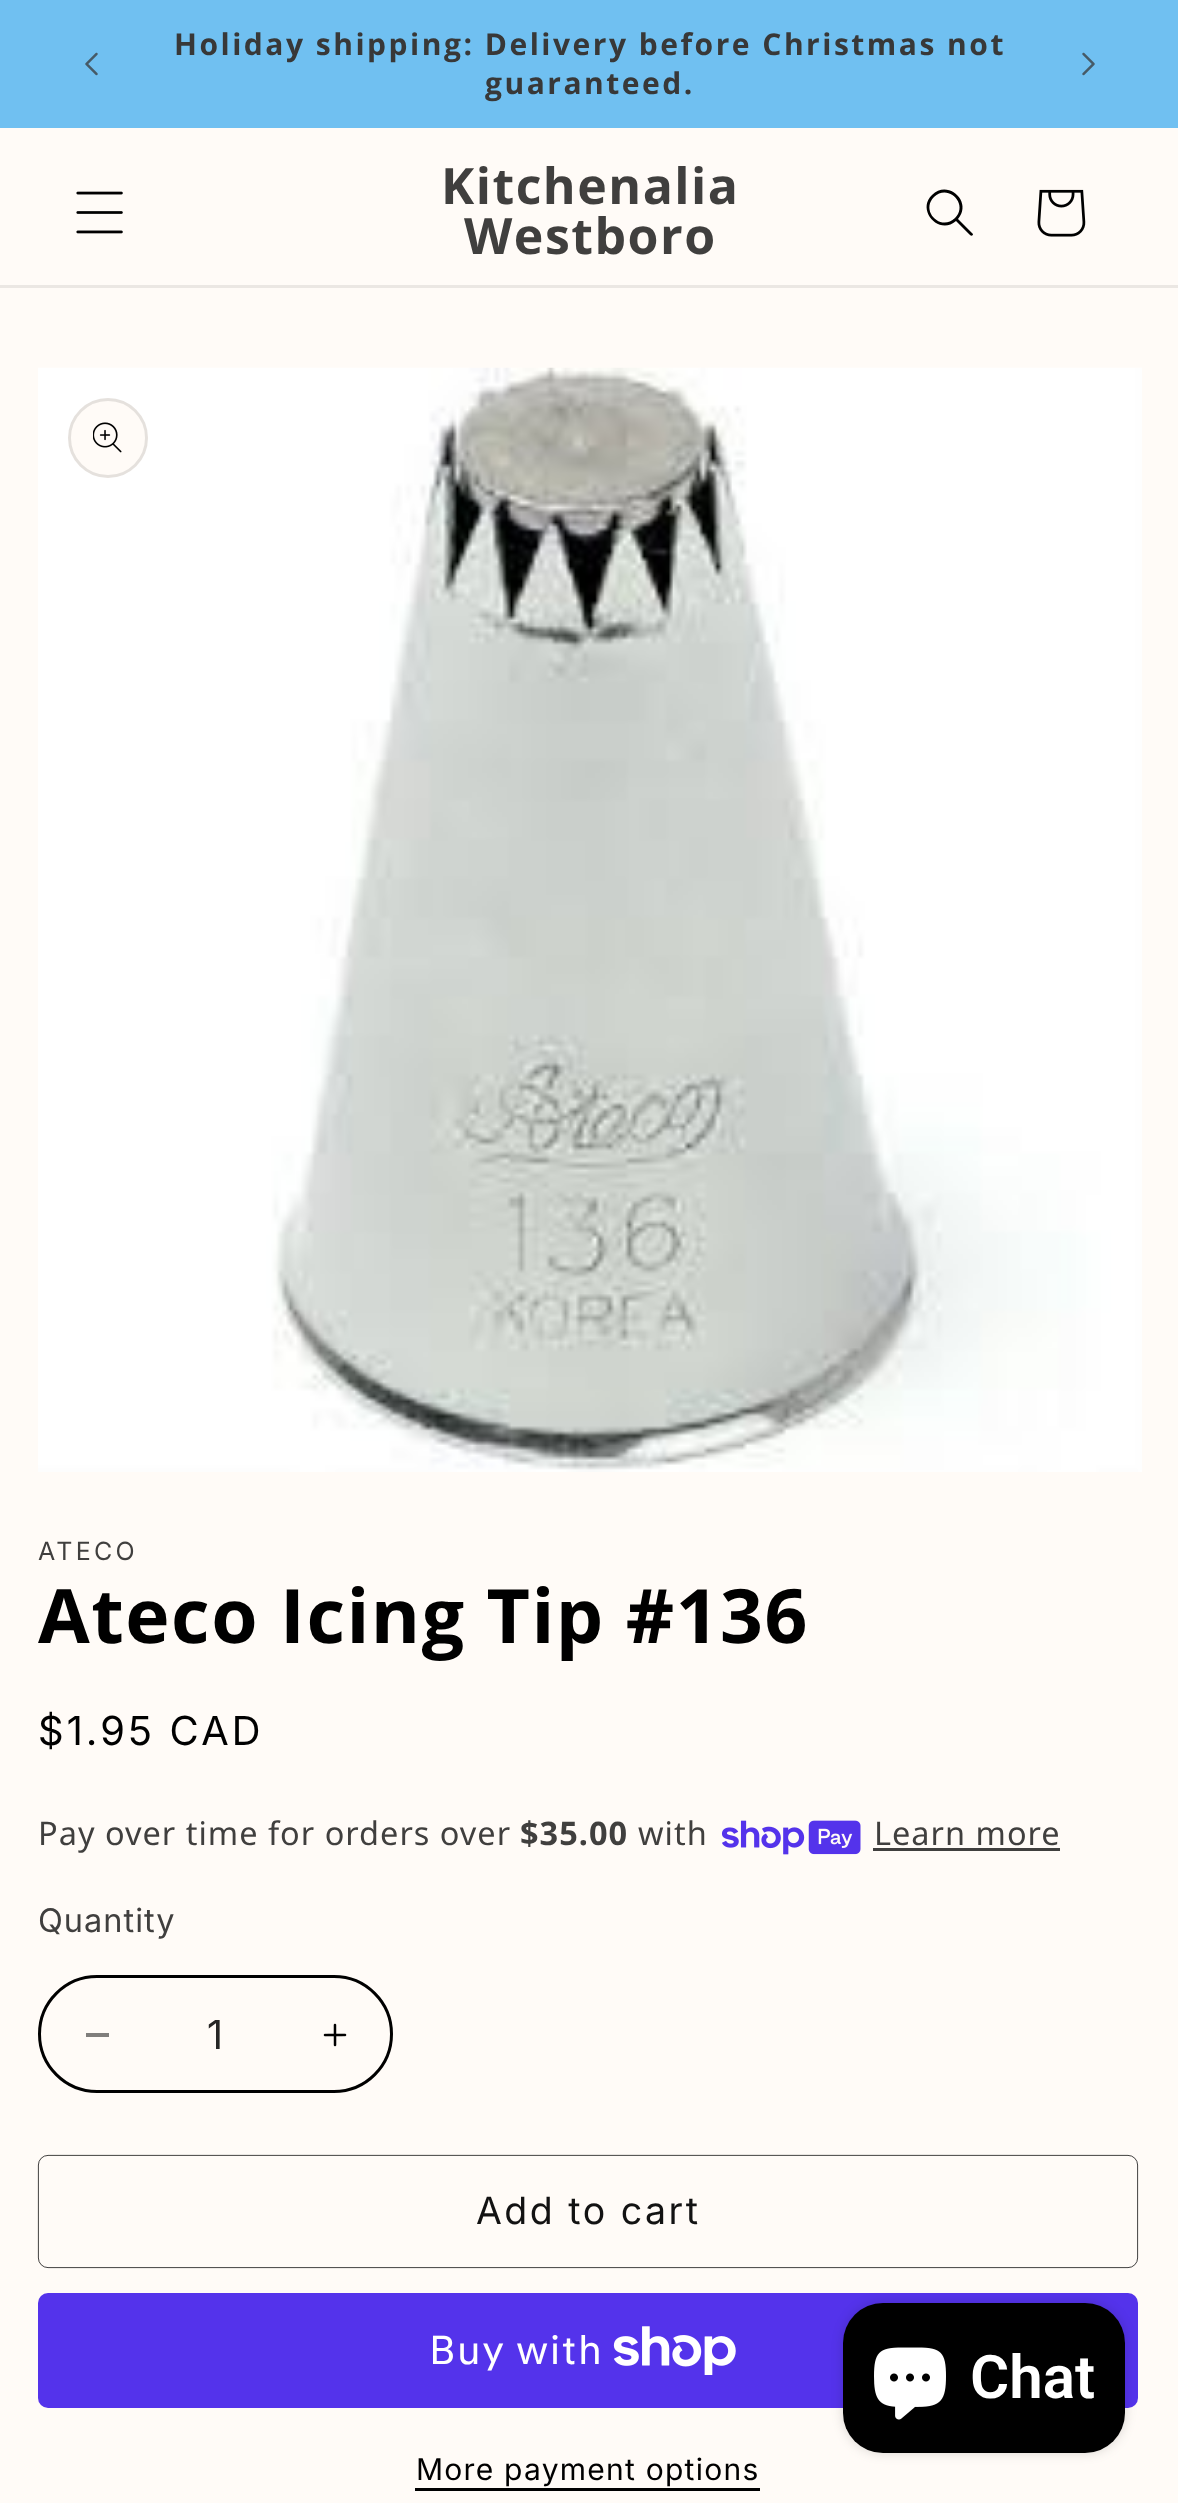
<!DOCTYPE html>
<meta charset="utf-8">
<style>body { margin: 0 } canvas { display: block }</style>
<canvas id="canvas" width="1178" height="2503"></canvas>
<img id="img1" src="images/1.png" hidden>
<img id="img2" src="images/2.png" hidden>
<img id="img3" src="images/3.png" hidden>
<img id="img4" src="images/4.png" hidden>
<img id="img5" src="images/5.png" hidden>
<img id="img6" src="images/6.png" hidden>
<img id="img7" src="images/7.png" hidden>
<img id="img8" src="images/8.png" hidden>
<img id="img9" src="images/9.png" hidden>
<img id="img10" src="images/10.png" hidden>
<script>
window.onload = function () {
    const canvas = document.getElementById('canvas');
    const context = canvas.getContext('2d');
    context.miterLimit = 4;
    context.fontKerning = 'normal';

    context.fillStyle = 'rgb(255, 251, 247)';
    context.fillRect(0, 0, 1178, 2503);
    context.fillStyle = 'rgb(112, 192, 241)';
    context.fillRect(0, 0, 1178, 128);
    context.drawImage(document.getElementById('img1'), 85, 52, 13, 24);
    context.drawImage(document.getElementById('img2'), 1082, 52, 13, 24);
    context.fillStyle = 'rgb(235, 231, 227)';
    context.fillRect(0, 285, 1178, 3);
    context.drawImage(document.getElementById('img3'), 76, 191, 47, 43);
    context.fillStyle = 'rgb(0, 0, 0)';
    context.beginPath();
    context.moveTo(955, 218);
    context.bezierCurveTo(941, 232, 920, 211, 934, 197);
    context.bezierCurveTo(948, 183, 969, 204, 955, 218);
    context.moveTo(956, 221);
    context.bezierCurveTo(939, 236, 916, 210, 932, 195);
    context.bezierCurveTo(948, 179, 973, 202, 958, 219);
    context.lineTo(973, 234);
    context.bezierCurveTo(973, 236, 971, 236, 970, 235);
    context.closePath();
    context.fill('evenodd');
    context.drawImage(document.getElementById('img4'), 1037, 189, 49, 48);
    context.drawImage(document.getElementById('img5'), 38, 367, 1104, 1105);
    context.fillStyle = 'rgb(255, 251, 247)';
    context.beginPath();
    context.arc(108, 438, 40, 0, 2 * Math.PI);
    context.fill();
    context.beginPath();
    context.arc(108, 438, 38.5, 0, 2 * Math.PI);
    context.strokeStyle = 'rgba(0, 0, 0, 0.1)';
    context.lineWidth = 3;
    context.stroke();
    context.drawImage(document.getElementById('img6'), 93, 422, 29, 31);
    context.drawImage(document.getElementById('img7'), 721, 1820, 140, 35);
    context.fillStyle = 'rgb(64, 63, 62)';
    context.fillRect(873, 1848, 187, 3);
    context.fillStyle = 'rgb(128, 126, 124)';
    context.fillRect(86, 2033, 23, 4);
    context.drawImage(document.getElementById('img8'), 323, 2023, 24, 24);
    context.beginPath();
    context.roundRect(39.5, 1976.5, 352, 115, 57.5);
    context.strokeStyle = 'rgb(0, 0, 0)';
    context.stroke();
    context.beginPath();
    context.roundRect(38.4, 2155.4, 1099.2, 112.2, 9.6);
    context.strokeStyle = 'rgb(18, 18, 18)';
    context.lineWidth = 0.8;
    context.stroke();
    context.fillStyle = 'rgb(84, 51, 235)';
    context.beginPath();
    context.roundRect(38, 2293, 1100, 115, 10);
    context.fill();
    context.drawImage(document.getElementById('img9'), 613, 2326, 123, 49);
    context.fillStyle = 'rgb(0, 0, 0)';
    context.fillRect(415, 2488, 345, 3);
    context.fillStyle = 'rgba(0, 0, 0, 0.15)';
    context.filter = 'blur(6px)';
    context.beginPath();
    context.roundRect(843, 2303, 282, 150, 40);
    context.fill();
    context.filter = 'none';
    context.fillStyle = 'rgb(0, 0, 0)';
    context.beginPath();
    context.roundRect(843, 2303, 282, 150, 40);
    context.fill();
    context.drawImage(document.getElementById('img10'), 874, 2347, 72, 73);
    context.letterSpacing = '2.5px';
    context.font = 'bold 30px Open Sans';
    context.fillStyle = 'rgb(56, 56, 56)';
    context.fillText('Holiday shipping: Delivery before Christmas not', 174, 55);
    context.fillText('guaranteed.', 485, 94);
    context.letterSpacing = '1.5px';
    context.font = 'bold 50px Open Sans';
    context.fillStyle = 'rgb(64, 63, 62)';
    context.fillText('Kitchenalia', 441, 204);
    context.fillText('Westboro', 464, 254);
    context.letterSpacing = '3.25px';
    context.font = '25px Inter';
    context.fillText('ATECO', 38, 1560);
    context.letterSpacing = '1.5px';
    context.font = 'bold 75px Open Sans';
    context.fillStyle = 'rgb(0, 0, 0)';
    context.fillText('Ateco Icing Tip #136', 38, 1643);
    context.letterSpacing = '3.25px';
    context.font = '40px "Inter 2"';
    context.fillText('$1.95 CAD', 38, 1745);
    context.letterSpacing = '1px';
    context.font = '32.5px Noto Sans';
    context.fillStyle = 'rgb(64, 63, 62)';
    context.fillText('Pay over time for orders over', 38, 1845);
    context.font = 'bold 32.5px Noto Sans';
    context.fillText('$35.00', 520, 1845);
    context.font = '32.5px Noto Sans';
    context.fillText('with', 638, 1845);
    context.fillText('Learn more', 874, 1845);
    context.font = '32.5px Inter';
    context.fillText('Quantity', 38, 1932);
    context.letterSpacing = '0px';
    context.font = '40px "Inter 2"';
    context.fillStyle = 'rgb(38, 38, 37)';
    context.fillText('1', 207, 2049);
    context.letterSpacing = '2.5px';
    context.font = '37.5px Inter';
    context.fillStyle = 'rgb(18, 18, 18)';
    context.fillText('Add to cart', 476, 2224);
    context.letterSpacing = '1.5px';
    context.font = '40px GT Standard';
    context.fillStyle = 'rgb(255, 255, 255)';
    context.fillText('Buy with', 429, 2364);
    context.letterSpacing = '1.25px';
    context.font = '30px Inter';
    context.fillStyle = 'rgb(0, 0, 0)';
    context.fillText('More payment options', 416, 2480);
    context.letterSpacing = '0px';
    context.font = '600 60px Roboto';
    context.fillStyle = 'rgb(255, 255, 255)';
    context.fillText('Chat', 970, 2398);
};
</script>
